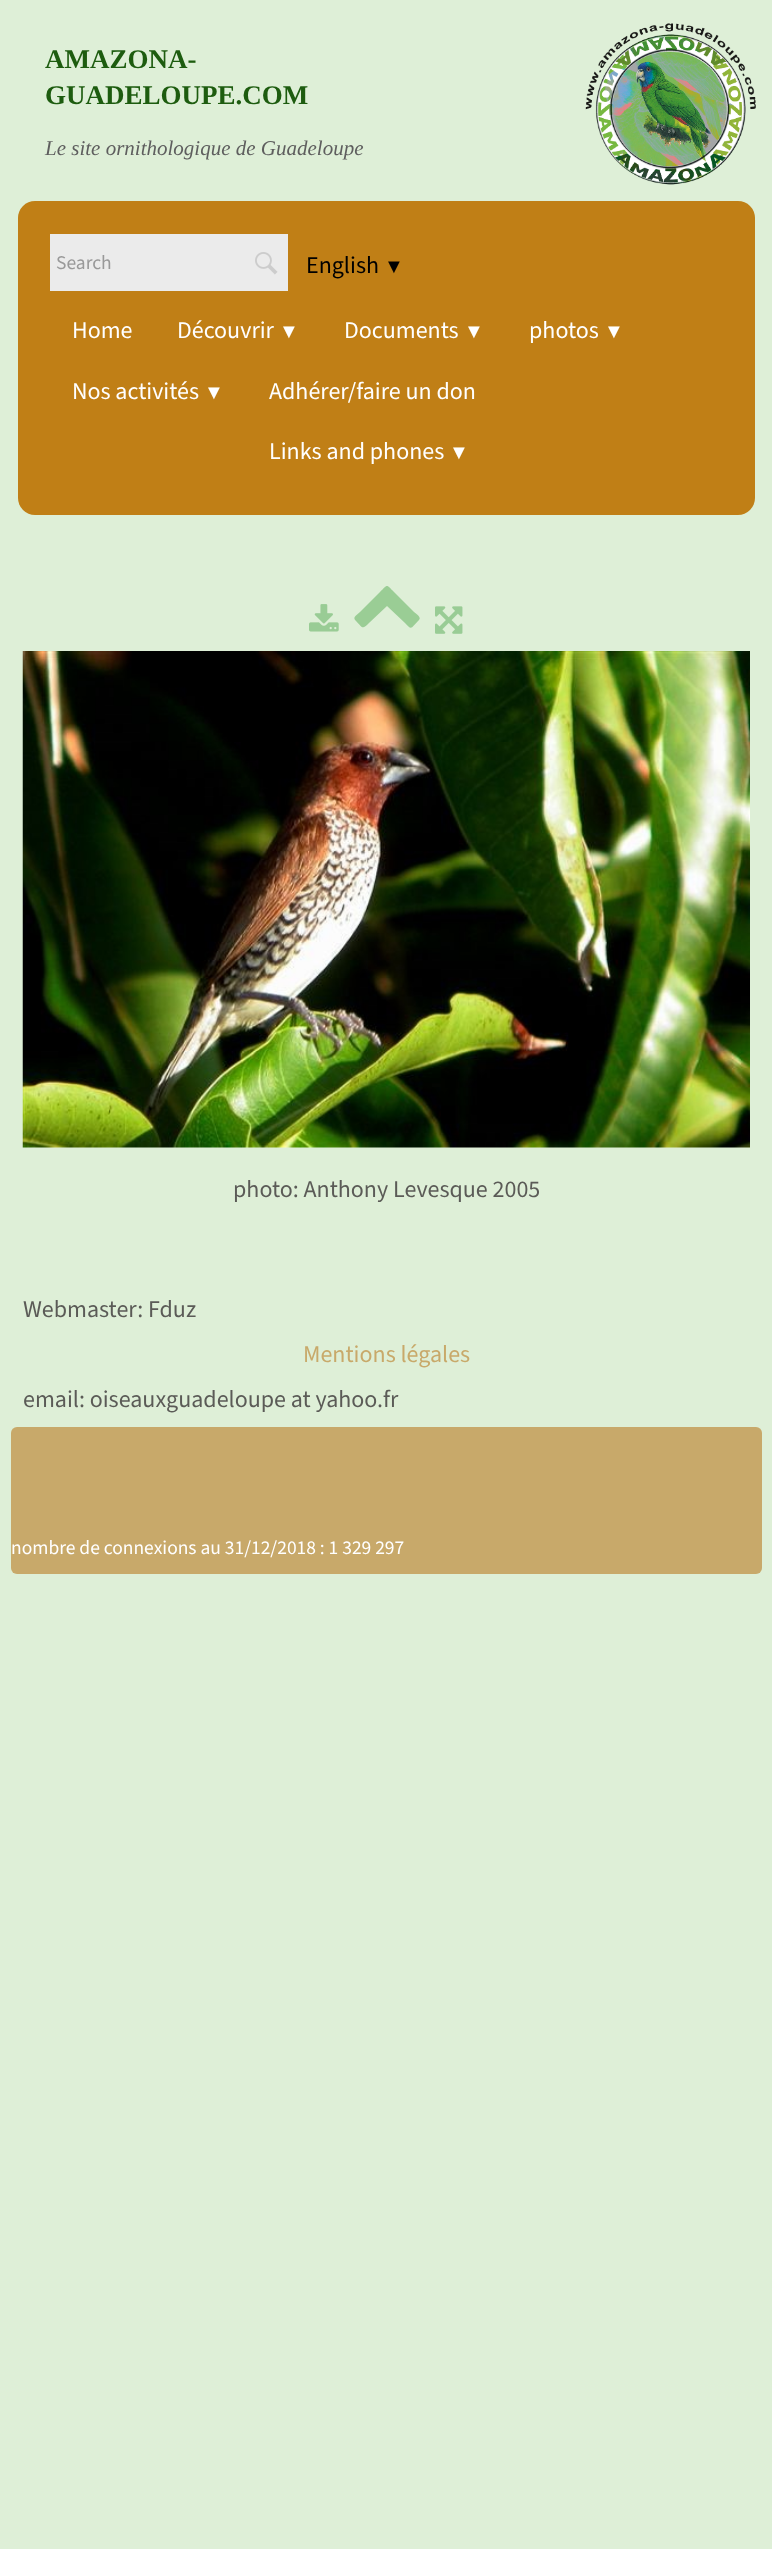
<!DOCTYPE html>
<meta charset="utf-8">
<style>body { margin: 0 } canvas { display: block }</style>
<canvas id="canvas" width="772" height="2549"></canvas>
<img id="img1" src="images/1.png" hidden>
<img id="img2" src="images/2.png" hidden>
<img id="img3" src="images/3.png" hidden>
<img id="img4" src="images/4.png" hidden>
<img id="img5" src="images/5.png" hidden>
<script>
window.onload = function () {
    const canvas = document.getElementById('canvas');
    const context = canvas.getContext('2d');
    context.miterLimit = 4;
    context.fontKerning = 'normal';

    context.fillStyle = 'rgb(222, 239, 215)';
    context.fillRect(0, 0, 772, 2549);
    context.drawImage(document.getElementById('img1'), 585, 23, 171, 162);
    context.fillStyle = 'rgb(192, 127, 22)';
    context.beginPath();
    context.roundRect(18, 201, 737, 314, 17);
    context.fill();
    context.fillStyle = 'rgb(235, 235, 235)';
    context.fillRect(50, 234, 238, 57);
    context.drawImage(document.getElementById('img2'), 255, 252, 23, 23);
    context.drawImage(document.getElementById('img3'), 309, 604, 30, 28);
    context.fillStyle = 'rgb(154, 205, 149)';
    context.beginPath();
    context.moveTo(419, 620);
    context.bezierCurveTo(411, 628, 412, 631, 405, 623);
    context.lineTo(387, 606);
    context.lineTo(369, 623);
    context.bezierCurveTo(362, 630, 363, 628, 356, 621);
    context.bezierCurveTo(352, 617, 356, 616, 360, 612);
    context.lineTo(380, 592);
    context.bezierCurveTo(388, 584, 386, 584, 394, 592);
    context.lineTo(414, 612);
    context.bezierCurveTo(415, 613, 422, 617, 419, 620);
    context.closePath();
    context.fill();
    context.drawImage(document.getElementById('img4'), 435, 606, 28, 28);
    context.drawImage(document.getElementById('img5'), 22, 651, 728, 497);
    context.fillStyle = 'rgb(200, 169, 106)';
    context.beginPath();
    context.roundRect(11, 1427, 751, 147, 6);
    context.fill();
    context.font = 'bold 27px Liberation Serif';
    context.fillStyle = 'rgb(29, 92, 15)';
    context.fillText('AMAZONA-', 45, 68);
    context.fillText('GUADELOUPE.COM', 45, 104);
    context.font = 'italic 21px Liberation Serif';
    context.fillStyle = 'rgb(94, 94, 94)';
    context.fillText('Le site ornithologique de Guadeloupe', 45, 155);
    context.font = '200 19.5px "Source Sans 3"';
    context.fillStyle = 'rgb(153, 153, 153)';
    context.fillText('Search', 56, 269);
    context.font = '200 24px "Source Sans 3"';
    context.fillStyle = 'rgb(0, 0, 0)';
    context.fillText('English', 306, 273);
    context.font = '20px Liberation Serif';
    context.fillText('▼', 384, 273);
    context.font = '200 24px "Source Sans 3"';
    context.fillStyle = 'rgb(255, 255, 255)';
    context.fillText('Home', 72, 338);
    context.fillText('Découvrir', 177, 338);
    context.font = '20px Liberation Serif';
    context.fillText('▼', 279, 338);
    context.font = '200 24px "Source Sans 3"';
    context.fillText('Documents', 344, 338);
    context.font = '20px Liberation Serif';
    context.fillText('▼', 464, 338);
    context.font = '200 24px "Source Sans 3"';
    context.fillText('photos', 529, 338);
    context.font = '20px Liberation Serif';
    context.fillText('▼', 604, 338);
    context.font = '200 24px "Source Sans 3"';
    context.fillText('Nos activités', 72, 399);
    context.font = '20px Liberation Serif';
    context.fillText('▼', 204, 399);
    context.font = '200 24px "Source Sans 3"';
    context.fillText('Adhérer/faire un don', 269, 399);
    context.fillText('Links and phones', 269, 459);
    context.font = '20px Liberation Serif';
    context.fillText('▼', 449, 459);
    context.font = '200 24px "Source Sans 3"';
    context.fillStyle = 'rgb(91, 91, 87)';
    context.fillText('photo: Anthony Levesque 2005', 233, 1197);
    context.fillText('Webmaster: Fduz', 23, 1317);
    context.fillStyle = 'rgb(200, 169, 106)';
    context.fillText('Mentions légales', 303, 1362);
    context.fillStyle = 'rgb(91, 91, 87)';
    context.fillText('email: oiseauxguadeloupe at yahoo.fr', 23, 1407);
    context.font = '200 19.5px "Source Sans 3"';
    context.fillStyle = 'rgb(255, 255, 255)';
    context.fillText('nombre de connexions au 31/12/2018 : 1 329 297', 11, 1554);
};
</script>
